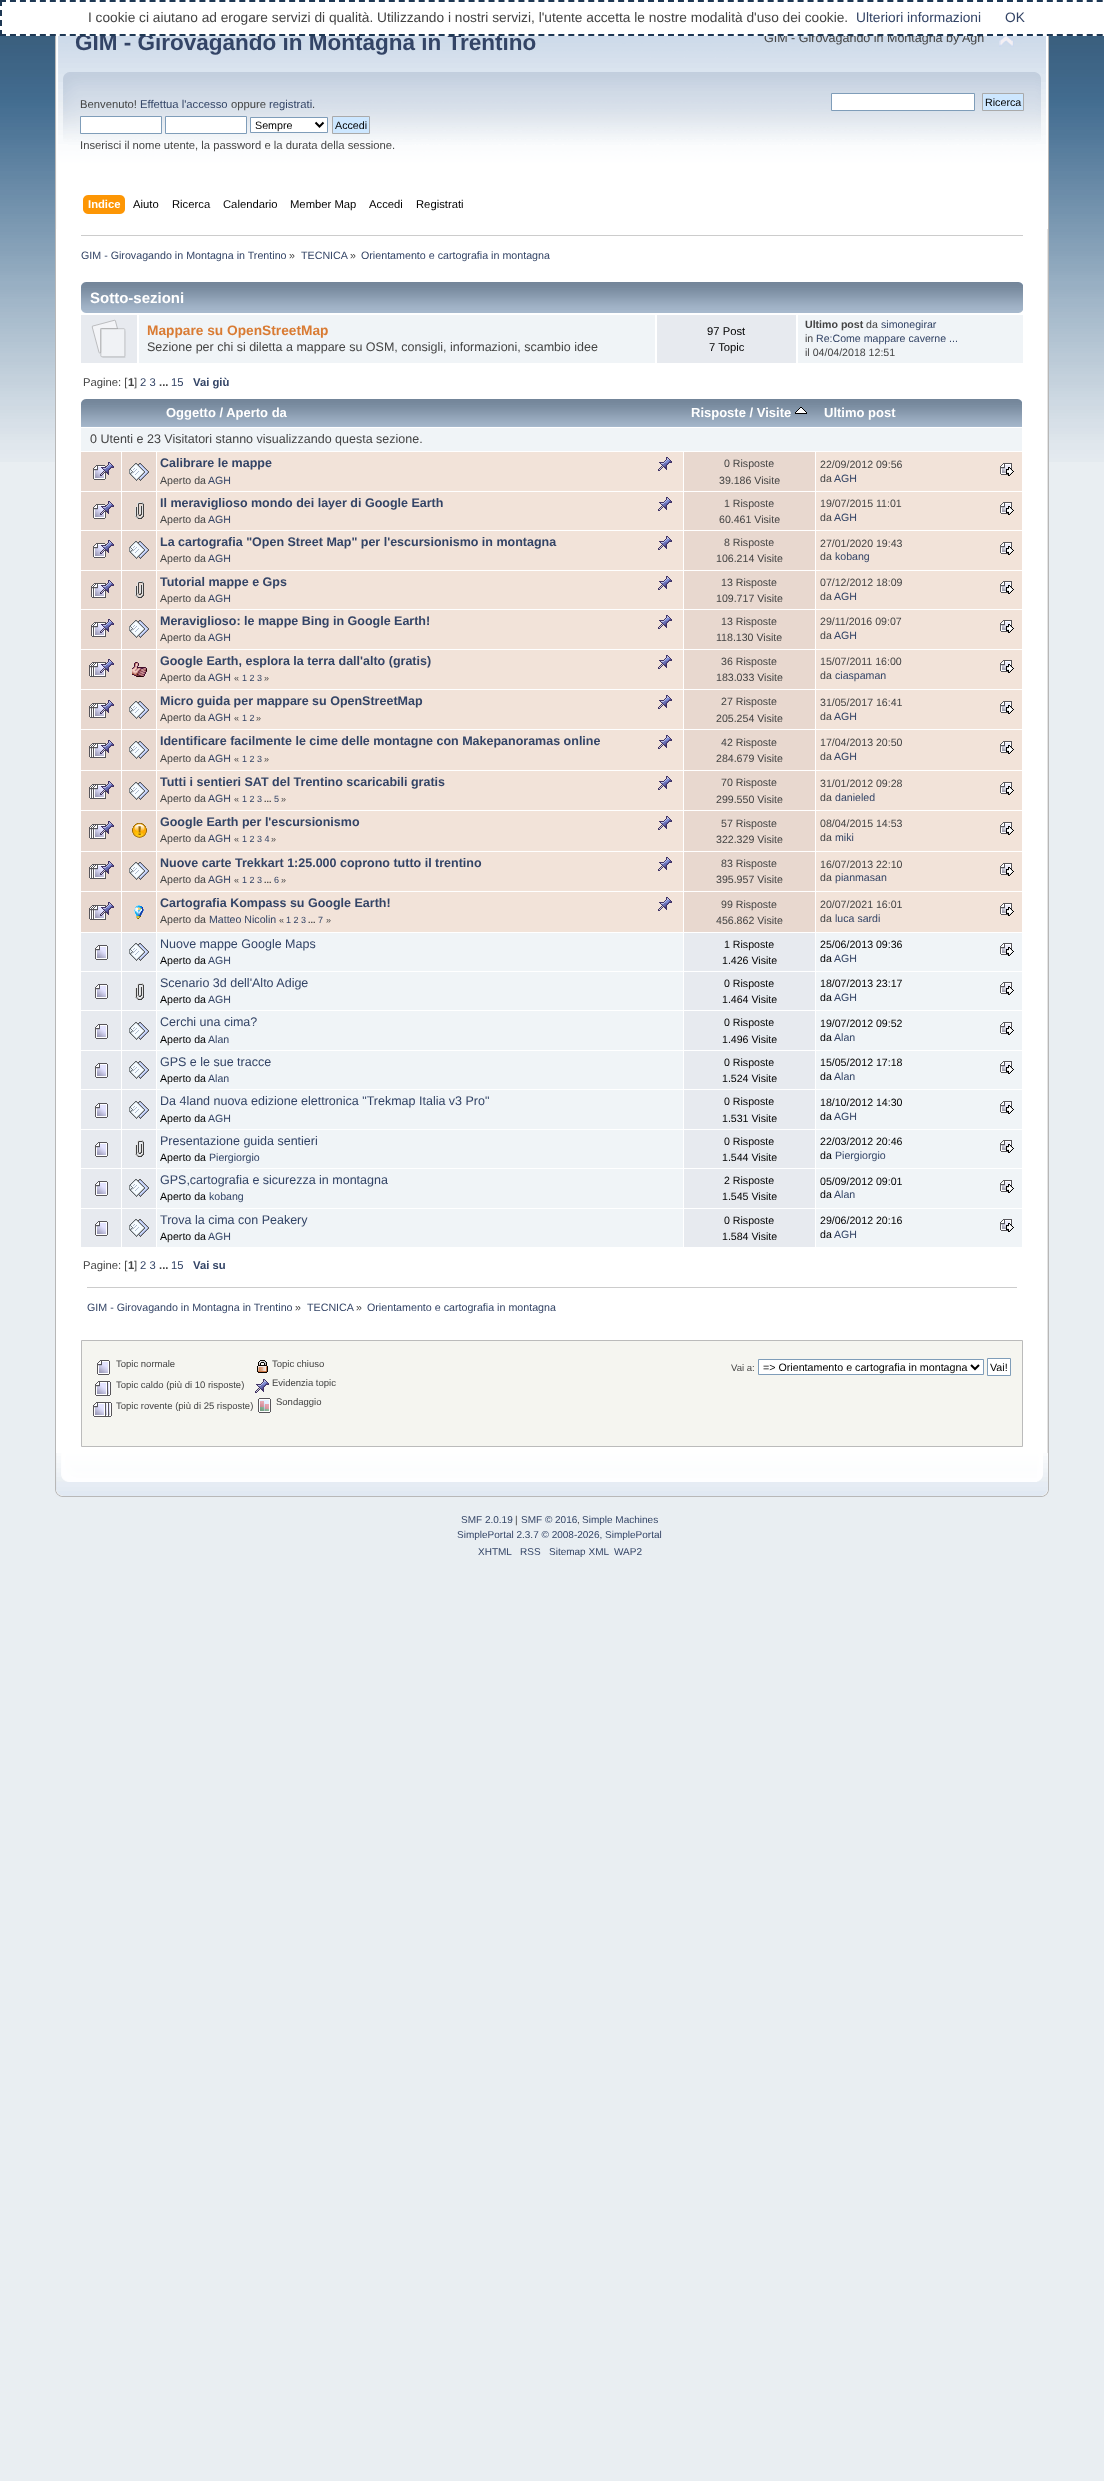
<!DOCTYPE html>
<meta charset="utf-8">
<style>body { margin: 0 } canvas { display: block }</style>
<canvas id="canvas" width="1104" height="2481"></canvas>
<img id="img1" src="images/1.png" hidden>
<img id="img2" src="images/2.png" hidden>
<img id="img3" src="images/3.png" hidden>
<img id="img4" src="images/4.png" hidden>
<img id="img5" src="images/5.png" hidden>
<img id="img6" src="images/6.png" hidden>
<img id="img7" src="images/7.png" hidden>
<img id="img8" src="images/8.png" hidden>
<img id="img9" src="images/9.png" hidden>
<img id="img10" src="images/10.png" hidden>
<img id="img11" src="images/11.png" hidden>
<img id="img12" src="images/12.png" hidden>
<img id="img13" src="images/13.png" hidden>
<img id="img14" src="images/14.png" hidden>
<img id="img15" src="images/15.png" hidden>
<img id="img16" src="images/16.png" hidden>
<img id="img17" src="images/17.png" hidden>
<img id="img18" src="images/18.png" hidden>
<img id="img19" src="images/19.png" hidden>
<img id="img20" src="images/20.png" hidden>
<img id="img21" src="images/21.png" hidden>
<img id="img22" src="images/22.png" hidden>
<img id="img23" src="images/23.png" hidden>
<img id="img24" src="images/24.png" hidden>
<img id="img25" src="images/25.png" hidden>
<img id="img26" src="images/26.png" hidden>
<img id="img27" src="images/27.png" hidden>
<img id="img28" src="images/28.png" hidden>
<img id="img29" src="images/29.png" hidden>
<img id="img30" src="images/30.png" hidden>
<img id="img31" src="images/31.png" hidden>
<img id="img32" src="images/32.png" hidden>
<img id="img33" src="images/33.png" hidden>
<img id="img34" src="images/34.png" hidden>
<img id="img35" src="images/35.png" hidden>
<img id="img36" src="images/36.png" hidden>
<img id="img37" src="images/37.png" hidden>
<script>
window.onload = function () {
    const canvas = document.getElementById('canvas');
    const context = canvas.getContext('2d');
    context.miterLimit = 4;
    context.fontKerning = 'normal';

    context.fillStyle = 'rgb(233, 238, 242)';
    context.fillRect(0, 0, 1104, 2481);
    context.drawImage(document.getElementById('img1'), 0, 36, 1104, 426);
    context.drawImage(document.getElementById('img2'), 55, 36, 980, 193);
    context.drawImage(document.getElementById('img3'), 1035, 36, 14, 193);
    context.drawImage(document.getElementById('img4'), 999, 36, 15, 11);
    context.fillStyle = 'rgb(255, 255, 255)';
    context.beginPath();
    context.rect(80.5, 116.5, 81, 17);
    context.fill();
    context.strokeStyle = 'rgb(127, 157, 185)';
    context.stroke();
    context.beginPath();
    context.rect(165.5, 116.5, 81, 17);
    context.fill();
    context.stroke();
    context.beginPath();
    context.rect(250.5, 117.5, 77, 15);
    context.fill();
    context.stroke();
    context.beginPath();
    context.moveTo(315.5, 122.5);
    context.lineTo(319.5, 126.5);
    context.lineTo(323.5, 122.5);
    context.strokeStyle = 'rgb(0, 0, 0)';
    context.lineWidth = 2;
    context.stroke();
    context.fillStyle = 'rgb(205, 231, 255)';
    context.beginPath();
    context.rect(332.5, 116.5, 37, 17);
    context.fill();
    context.strokeStyle = 'rgb(170, 170, 170)';
    context.lineWidth = 1;
    context.stroke();
    context.fillStyle = 'rgb(255, 255, 255)';
    context.beginPath();
    context.rect(831.5, 93.5, 143, 17);
    context.fill();
    context.strokeStyle = 'rgb(127, 157, 185)';
    context.stroke();
    context.fillStyle = 'rgb(205, 231, 255)';
    context.beginPath();
    context.rect(982.5, 93.5, 41, 17);
    context.fill();
    context.strokeStyle = 'rgb(170, 170, 170)';
    context.stroke();
    context.drawImage(document.getElementById('img5'), 88, 195, 37, 19);
    context.drawImage(document.getElementById('img6'), 83, 195, 5, 19);
    context.fillStyle = 'rgb(255, 255, 255)';
    context.fillRect(56, 229, 991, 1224);
    context.fillStyle = 'rgb(183, 183, 183)';
    context.fillRect(55, 229, 1, 1224);
    context.drawImage(document.getElementById('img7'), 1047, 229, 2, 1224);
    context.fillStyle = 'rgb(204, 204, 204)';
    context.fillRect(81, 235, 942, 1);
    context.drawImage(document.getElementById('img8'), 81, 282, 937, 31);
    context.drawImage(document.getElementById('img9'), 1018, 282, 5, 31);
    context.fillStyle = 'rgb(240, 244, 247)';
    context.fillRect(139, 315, 884, 48);
    context.fillStyle = 'rgb(231, 234, 239)';
    context.fillRect(81, 315, 56, 48);
    context.drawImage(document.getElementById('img10'), 91, 319, 35, 39);
    context.fillStyle = 'rgb(255, 255, 255)';
    context.fillRect(655, 314, 2, 50);
    context.fillStyle = 'rgb(231, 234, 239)';
    context.fillRect(657, 315, 139, 48);
    context.fillStyle = 'rgb(255, 255, 255)';
    context.fillRect(796, 314, 2, 50);
    context.fillStyle = 'rgb(167, 185, 205)';
    context.fillRect(81, 426, 941, 1);
    context.drawImage(document.getElementById('img11'), 81, 399, 75, 27);
    context.drawImage(document.getElementById('img12'), 156, 399, 528, 27);
    context.drawImage(document.getElementById('img13'), 684, 399, 131, 27);
    context.drawImage(document.getElementById('img14'), 795, 407, 12, 7);
    context.drawImage(document.getElementById('img15'), 815, 399, 207, 27);
    context.fillStyle = 'rgb(240, 244, 247)';
    context.fillRect(81, 428, 941, 23);
    context.fillStyle = 'rgb(232, 216, 207)';
    context.fillRect(81, 452, 40, 39);
    context.drawImage(document.getElementById('img16'), 93, 462, 21, 18);
    context.fillRect(122, 452, 34, 39);
    context.drawImage(document.getElementById('img17'), 129, 463, 20, 18);
    context.fillStyle = 'rgb(242, 227, 217)';
    context.fillRect(157, 452, 526, 39);
    context.drawImage(document.getElementById('img18'), 658, 457, 14, 14);
    context.fillStyle = 'rgb(232, 216, 207)';
    context.fillRect(684, 452, 131, 39);
    context.fillStyle = 'rgb(242, 227, 217)';
    context.fillRect(816, 452, 206, 39);
    context.drawImage(document.getElementById('img19'), 1000, 463, 14, 13);
    context.fillStyle = 'rgb(232, 216, 207)';
    context.fillRect(81, 492, 40, 38);
    context.drawImage(document.getElementById('img16'), 93, 501, 21, 18);
    context.fillRect(122, 492, 34, 38);
    context.drawImage(document.getElementById('img20'), 135, 502, 9, 17);
    context.fillStyle = 'rgb(242, 227, 217)';
    context.fillRect(157, 492, 526, 38);
    context.drawImage(document.getElementById('img18'), 658, 497, 14, 14);
    context.fillStyle = 'rgb(232, 216, 207)';
    context.fillRect(684, 492, 131, 38);
    context.fillStyle = 'rgb(242, 227, 217)';
    context.fillRect(816, 492, 206, 38);
    context.drawImage(document.getElementById('img19'), 1000, 502, 14, 13);
    context.fillStyle = 'rgb(232, 216, 207)';
    context.fillRect(81, 531, 40, 39);
    context.drawImage(document.getElementById('img16'), 93, 540, 21, 18);
    context.fillRect(122, 531, 34, 39);
    context.drawImage(document.getElementById('img17'), 129, 541, 20, 18);
    context.fillStyle = 'rgb(242, 227, 217)';
    context.fillRect(157, 531, 526, 39);
    context.drawImage(document.getElementById('img18'), 658, 536, 14, 14);
    context.fillStyle = 'rgb(232, 216, 207)';
    context.fillRect(684, 531, 131, 39);
    context.fillStyle = 'rgb(242, 227, 217)';
    context.fillRect(816, 531, 206, 39);
    context.drawImage(document.getElementById('img19'), 1000, 542, 14, 13);
    context.fillStyle = 'rgb(232, 216, 207)';
    context.fillRect(81, 571, 40, 38);
    context.drawImage(document.getElementById('img21'), 91, 580, 23, 18);
    context.fillRect(122, 571, 34, 38);
    context.drawImage(document.getElementById('img20'), 135, 581, 9, 17);
    context.fillStyle = 'rgb(242, 227, 217)';
    context.fillRect(157, 571, 526, 38);
    context.drawImage(document.getElementById('img18'), 658, 576, 14, 14);
    context.fillStyle = 'rgb(232, 216, 207)';
    context.fillRect(684, 571, 131, 38);
    context.fillStyle = 'rgb(242, 227, 217)';
    context.fillRect(816, 571, 206, 38);
    context.drawImage(document.getElementById('img19'), 1000, 581, 14, 13);
    context.fillStyle = 'rgb(232, 216, 207)';
    context.fillRect(81, 610, 40, 39);
    context.drawImage(document.getElementById('img21'), 91, 619, 23, 18);
    context.fillRect(122, 610, 34, 39);
    context.drawImage(document.getElementById('img17'), 129, 620, 20, 18);
    context.fillStyle = 'rgb(242, 227, 217)';
    context.fillRect(157, 610, 526, 39);
    context.drawImage(document.getElementById('img18'), 658, 615, 14, 14);
    context.fillStyle = 'rgb(232, 216, 207)';
    context.fillRect(684, 610, 131, 39);
    context.fillStyle = 'rgb(242, 227, 217)';
    context.fillRect(816, 610, 206, 39);
    context.drawImage(document.getElementById('img19'), 1000, 620, 14, 13);
    context.fillStyle = 'rgb(232, 216, 207)';
    context.fillRect(81, 650, 40, 39);
    context.drawImage(document.getElementById('img22'), 89, 659, 25, 18);
    context.fillRect(122, 650, 34, 39);
    context.drawImage(document.getElementById('img23'), 132, 662, 15, 15);
    context.fillStyle = 'rgb(242, 227, 217)';
    context.fillRect(157, 650, 526, 39);
    context.drawImage(document.getElementById('img18'), 658, 655, 14, 14);
    context.fillStyle = 'rgb(232, 216, 207)';
    context.fillRect(684, 650, 131, 39);
    context.fillStyle = 'rgb(242, 227, 217)';
    context.fillRect(816, 650, 206, 39);
    context.drawImage(document.getElementById('img19'), 1000, 660, 14, 13);
    context.fillStyle = 'rgb(232, 216, 207)';
    context.fillRect(81, 690, 40, 39);
    context.drawImage(document.getElementById('img22'), 89, 700, 25, 18);
    context.fillRect(122, 690, 34, 39);
    context.drawImage(document.getElementById('img17'), 129, 701, 20, 18);
    context.fillStyle = 'rgb(242, 227, 217)';
    context.fillRect(157, 690, 526, 39);
    context.drawImage(document.getElementById('img18'), 658, 695, 14, 14);
    context.fillStyle = 'rgb(232, 216, 207)';
    context.fillRect(684, 690, 131, 39);
    context.fillStyle = 'rgb(242, 227, 217)';
    context.fillRect(816, 690, 206, 39);
    context.drawImage(document.getElementById('img19'), 1000, 701, 14, 13);
    context.fillStyle = 'rgb(232, 216, 207)';
    context.fillRect(81, 730, 40, 40);
    context.drawImage(document.getElementById('img22'), 89, 740, 25, 18);
    context.fillRect(122, 730, 34, 40);
    context.drawImage(document.getElementById('img17'), 129, 741, 20, 18);
    context.fillStyle = 'rgb(242, 227, 217)';
    context.fillRect(157, 730, 526, 40);
    context.drawImage(document.getElementById('img18'), 658, 735, 14, 14);
    context.fillStyle = 'rgb(232, 216, 207)';
    context.fillRect(684, 730, 131, 40);
    context.fillStyle = 'rgb(242, 227, 217)';
    context.fillRect(816, 730, 206, 40);
    context.drawImage(document.getElementById('img19'), 1000, 741, 14, 13);
    context.fillStyle = 'rgb(232, 216, 207)';
    context.fillRect(81, 771, 40, 39);
    context.drawImage(document.getElementById('img22'), 89, 781, 25, 18);
    context.fillRect(122, 771, 34, 39);
    context.drawImage(document.getElementById('img17'), 129, 782, 20, 18);
    context.fillStyle = 'rgb(242, 227, 217)';
    context.fillRect(157, 771, 526, 39);
    context.drawImage(document.getElementById('img18'), 658, 776, 14, 14);
    context.fillStyle = 'rgb(232, 216, 207)';
    context.fillRect(684, 771, 131, 39);
    context.fillStyle = 'rgb(242, 227, 217)';
    context.fillRect(816, 771, 206, 39);
    context.drawImage(document.getElementById('img19'), 1000, 782, 14, 13);
    context.fillStyle = 'rgb(232, 216, 207)';
    context.fillRect(81, 811, 40, 40);
    context.drawImage(document.getElementById('img22'), 89, 821, 25, 18);
    context.fillRect(122, 811, 34, 40);
    context.drawImage(document.getElementById('img24'), 132, 823, 15, 15);
    context.fillStyle = 'rgb(242, 227, 217)';
    context.fillRect(157, 811, 526, 40);
    context.drawImage(document.getElementById('img18'), 658, 816, 14, 14);
    context.fillStyle = 'rgb(232, 216, 207)';
    context.fillRect(684, 811, 131, 40);
    context.fillStyle = 'rgb(242, 227, 217)';
    context.fillRect(816, 811, 206, 40);
    context.drawImage(document.getElementById('img19'), 1000, 822, 14, 13);
    context.fillStyle = 'rgb(232, 216, 207)';
    context.fillRect(81, 852, 40, 39);
    context.drawImage(document.getElementById('img22'), 89, 861, 25, 18);
    context.fillRect(122, 852, 34, 39);
    context.drawImage(document.getElementById('img17'), 129, 862, 20, 18);
    context.fillStyle = 'rgb(242, 227, 217)';
    context.fillRect(157, 852, 526, 39);
    context.drawImage(document.getElementById('img18'), 658, 857, 14, 14);
    context.fillStyle = 'rgb(232, 216, 207)';
    context.fillRect(684, 852, 131, 39);
    context.fillStyle = 'rgb(242, 227, 217)';
    context.fillRect(816, 852, 206, 39);
    context.drawImage(document.getElementById('img19'), 1000, 863, 14, 13);
    context.fillStyle = 'rgb(232, 216, 207)';
    context.fillRect(81, 892, 40, 40);
    context.drawImage(document.getElementById('img22'), 89, 902, 25, 18);
    context.fillRect(122, 892, 34, 40);
    context.drawImage(document.getElementById('img25'), 134, 905, 10, 14);
    context.fillStyle = 'rgb(242, 227, 217)';
    context.fillRect(157, 892, 526, 40);
    context.drawImage(document.getElementById('img18'), 658, 897, 14, 14);
    context.fillStyle = 'rgb(232, 216, 207)';
    context.fillRect(684, 892, 131, 40);
    context.fillStyle = 'rgb(242, 227, 217)';
    context.fillRect(816, 892, 206, 40);
    context.drawImage(document.getElementById('img19'), 1000, 903, 14, 13);
    context.fillStyle = 'rgb(231, 234, 239)';
    context.fillRect(81, 933, 40, 38);
    context.drawImage(document.getElementById('img26'), 95, 945, 13, 15);
    context.fillRect(122, 933, 34, 38);
    context.drawImage(document.getElementById('img27'), 129, 943, 20, 18);
    context.fillStyle = 'rgb(240, 244, 247)';
    context.fillRect(157, 933, 526, 38);
    context.fillStyle = 'rgb(231, 234, 239)';
    context.fillRect(684, 933, 131, 38);
    context.fillStyle = 'rgb(240, 244, 247)';
    context.fillRect(816, 933, 206, 38);
    context.drawImage(document.getElementById('img28'), 1000, 943, 14, 13);
    context.fillStyle = 'rgb(231, 234, 239)';
    context.fillRect(81, 972, 40, 38);
    context.drawImage(document.getElementById('img26'), 95, 984, 13, 15);
    context.fillRect(122, 972, 34, 38);
    context.drawImage(document.getElementById('img29'), 135, 983, 9, 17);
    context.fillStyle = 'rgb(240, 244, 247)';
    context.fillRect(157, 972, 526, 38);
    context.fillStyle = 'rgb(231, 234, 239)';
    context.fillRect(684, 972, 131, 38);
    context.fillStyle = 'rgb(240, 244, 247)';
    context.fillRect(816, 972, 206, 38);
    context.drawImage(document.getElementById('img28'), 1000, 982, 14, 13);
    context.fillStyle = 'rgb(231, 234, 239)';
    context.fillRect(81, 1011, 40, 39);
    context.drawImage(document.getElementById('img26'), 95, 1024, 13, 15);
    context.fillRect(122, 1011, 34, 39);
    context.drawImage(document.getElementById('img27'), 129, 1022, 20, 18);
    context.fillStyle = 'rgb(240, 244, 247)';
    context.fillRect(157, 1011, 526, 39);
    context.fillStyle = 'rgb(231, 234, 239)';
    context.fillRect(684, 1011, 131, 39);
    context.fillStyle = 'rgb(240, 244, 247)';
    context.fillRect(816, 1011, 206, 39);
    context.drawImage(document.getElementById('img28'), 1000, 1022, 14, 13);
    context.fillStyle = 'rgb(231, 234, 239)';
    context.fillRect(81, 1051, 40, 38);
    context.drawImage(document.getElementById('img26'), 95, 1063, 13, 15);
    context.fillRect(122, 1051, 34, 38);
    context.drawImage(document.getElementById('img27'), 129, 1061, 20, 18);
    context.fillStyle = 'rgb(240, 244, 247)';
    context.fillRect(157, 1051, 526, 38);
    context.fillStyle = 'rgb(231, 234, 239)';
    context.fillRect(684, 1051, 131, 38);
    context.fillStyle = 'rgb(240, 244, 247)';
    context.fillRect(816, 1051, 206, 38);
    context.drawImage(document.getElementById('img28'), 1000, 1061, 14, 13);
    context.fillStyle = 'rgb(231, 234, 239)';
    context.fillRect(81, 1090, 40, 39);
    context.drawImage(document.getElementById('img26'), 95, 1103, 13, 15);
    context.fillRect(122, 1090, 34, 39);
    context.drawImage(document.getElementById('img27'), 129, 1101, 20, 18);
    context.fillStyle = 'rgb(240, 244, 247)';
    context.fillRect(157, 1090, 526, 39);
    context.fillStyle = 'rgb(231, 234, 239)';
    context.fillRect(684, 1090, 131, 39);
    context.fillStyle = 'rgb(240, 244, 247)';
    context.fillRect(816, 1090, 206, 39);
    context.drawImage(document.getElementById('img28'), 1000, 1101, 14, 13);
    context.fillStyle = 'rgb(231, 234, 239)';
    context.fillRect(81, 1130, 40, 38);
    context.drawImage(document.getElementById('img26'), 95, 1142, 13, 15);
    context.fillRect(122, 1130, 34, 38);
    context.drawImage(document.getElementById('img29'), 135, 1140, 9, 17);
    context.fillStyle = 'rgb(240, 244, 247)';
    context.fillRect(157, 1130, 526, 38);
    context.fillStyle = 'rgb(231, 234, 239)';
    context.fillRect(684, 1130, 131, 38);
    context.fillStyle = 'rgb(240, 244, 247)';
    context.fillRect(816, 1130, 206, 38);
    context.drawImage(document.getElementById('img28'), 1000, 1140, 14, 13);
    context.fillStyle = 'rgb(231, 234, 239)';
    context.fillRect(81, 1169, 40, 39);
    context.drawImage(document.getElementById('img26'), 95, 1181, 13, 15);
    context.fillRect(122, 1169, 34, 39);
    context.drawImage(document.getElementById('img27'), 129, 1179, 20, 18);
    context.fillStyle = 'rgb(240, 244, 247)';
    context.fillRect(157, 1169, 526, 39);
    context.fillStyle = 'rgb(231, 234, 239)';
    context.fillRect(684, 1169, 131, 39);
    context.fillStyle = 'rgb(240, 244, 247)';
    context.fillRect(816, 1169, 206, 39);
    context.drawImage(document.getElementById('img28'), 1000, 1180, 14, 13);
    context.fillStyle = 'rgb(231, 234, 239)';
    context.fillRect(81, 1209, 40, 38);
    context.drawImage(document.getElementById('img26'), 95, 1221, 13, 15);
    context.fillRect(122, 1209, 34, 38);
    context.drawImage(document.getElementById('img27'), 129, 1219, 20, 18);
    context.fillStyle = 'rgb(240, 244, 247)';
    context.fillRect(157, 1209, 526, 38);
    context.fillStyle = 'rgb(231, 234, 239)';
    context.fillRect(684, 1209, 131, 38);
    context.fillStyle = 'rgb(240, 244, 247)';
    context.fillRect(816, 1209, 206, 38);
    context.drawImage(document.getElementById('img28'), 1000, 1219, 14, 13);
    context.fillStyle = 'rgb(204, 204, 204)';
    context.fillRect(87, 1287, 930, 1);
    context.fillStyle = 'rgb(245, 245, 240)';
    context.beginPath();
    context.rect(81.5, 1340.5, 941, 106);
    context.fill();
    context.strokeStyle = 'rgb(187, 187, 187)';
    context.stroke();
    context.drawImage(document.getElementById('img30'), 97, 1360, 13, 15);
    context.drawImage(document.getElementById('img31'), 95, 1381, 16, 15);
    context.drawImage(document.getElementById('img32'), 93, 1402, 19, 15);
    context.drawImage(document.getElementById('img33'), 257, 1360, 11, 13);
    context.drawImage(document.getElementById('img34'), 255, 1379, 14, 14);
    context.drawImage(document.getElementById('img35'), 258, 1398, 13, 15);
    context.fillStyle = 'rgb(255, 255, 255)';
    context.beginPath();
    context.rect(758.5, 1359.5, 225, 15);
    context.fill();
    context.strokeStyle = 'rgb(127, 157, 185)';
    context.stroke();
    context.beginPath();
    context.moveTo(971, 1365);
    context.lineTo(975, 1369);
    context.lineTo(979, 1365);
    context.strokeStyle = 'rgb(0, 0, 0)';
    context.lineWidth = 2;
    context.stroke();
    context.beginPath();
    context.rect(987.5, 1358.5, 23, 17);
    context.fill();
    context.strokeStyle = 'rgb(127, 157, 185)';
    context.lineWidth = 1;
    context.stroke();
    context.drawImage(document.getElementById('img36'), 55, 1453, 982, 44);
    context.drawImage(document.getElementById('img37'), 1037, 1453, 12, 44);
    context.font = 'bold 22.5px Liberation Sans';
    context.fillStyle = 'rgb(51, 68, 102)';
    context.fillText('GIM - Girovagando in Montagna in Trentino', 75, 50);
    context.font = '12.5px Liberation Sans';
    context.fillStyle = 'rgb(68, 68, 68)';
    context.fillText('GIM - Girovagando in Montagna by Agh', 764, 42);
    context.fillStyle = 'rgb(255, 255, 255)';
    context.fillRect(0, 0, 1104, 36);
    context.font = '13.73px Liberation Sans';
    context.fillStyle = 'rgb(51, 68, 102)';
    context.fillText('OK', 1005, 22);
    context.fillText('Ulteriori informazioni', 856, 22);
    context.fillStyle = 'rgb(68, 68, 68)';
    context.fillText('I cookie ci aiutano ad erogare servizi di qualità. Utilizzando i nostri servizi, l\'utente accetta le nostre modalità d\'uso dei cookie.', 88, 22);
    context.beginPath();
    context.moveTo(0, 35);
    context.lineTo(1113, 35);
    context.strokeStyle = 'rgb(30, 56, 84)';
    context.lineWidth = 2;
    context.setLineDash([6, 3.97]);
    context.stroke();
    context.beginPath();
    context.moveTo(0, 1);
    context.lineTo(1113, 1);
    context.stroke();
    context.beginPath();
    context.moveTo(1, 0);
    context.lineTo(1, 36);
    context.setLineDash([6, 4]);
    context.stroke();
    context.font = '11.25px Liberation Sans';
    context.fillText('Benvenuto!', 80, 108);
    context.fillStyle = 'rgb(51, 68, 102)';
    context.fillText('Effettua l\'accesso', 140, 108);
    context.fillStyle = 'rgb(68, 68, 68)';
    context.fillText('oppure', 231, 108);
    context.fillStyle = 'rgb(51, 68, 102)';
    context.fillText('registrati', 269, 108);
    context.fillStyle = 'rgb(68, 68, 68)';
    context.fillText('.', 312, 108);
    context.font = '10.7px Liberation Sans';
    context.fillStyle = 'rgb(0, 0, 0)';
    context.fillText('Sempre', 255, 129);
    context.fillText('Accedi', 335, 129);
    context.font = '11.25px Liberation Sans';
    context.fillStyle = 'rgb(68, 68, 68)';
    context.fillText('Inserisci il nome utente, la password e la durata della sessione.', 80, 149);
    context.font = '10.7px Liberation Sans';
    context.fillStyle = 'rgb(0, 0, 0)';
    context.fillText('Ricerca', 985, 106);
    context.font = 'bold 11.25px Liberation Sans';
    context.fillStyle = 'rgb(255, 255, 255)';
    context.fillText('Indice', 88, 208);
    context.font = '11.25px Liberation Sans';
    context.fillStyle = 'rgb(0, 0, 0)';
    context.fillText('Aiuto', 133, 208);
    context.fillText('Ricerca', 172, 208);
    context.fillText('Calendario', 223, 208);
    context.fillText('Member Map', 290, 208);
    context.fillText('Accedi', 369, 208);
    context.fillText('Registrati', 416, 208);
    context.font = '10.7px Liberation Sans';
    context.fillStyle = 'rgb(51, 68, 102)';
    context.fillText('GIM - Girovagando in Montagna in Trentino', 81, 259);
    context.fillStyle = 'rgb(68, 68, 68)';
    context.fillText('»', 289, 259);
    context.fillStyle = 'rgb(51, 68, 102)';
    context.fillText('TECNICA', 301, 259);
    context.fillStyle = 'rgb(68, 68, 68)';
    context.fillText('»', 350, 259);
    context.fillStyle = 'rgb(51, 68, 102)';
    context.fillText('Orientamento e cartografia in montagna', 361, 259);
    context.font = 'bold 15px Liberation Sans';
    context.fillStyle = 'rgb(255, 255, 255)';
    context.fillText('Sotto-sezioni', 90, 303);
    context.font = 'bold 13.73px Liberation Sans';
    context.fillStyle = 'rgb(217, 123, 51)';
    context.fillText('Mappare su OpenStreetMap', 147, 335);
    context.font = '12.5px Liberation Sans';
    context.fillStyle = 'rgb(68, 68, 68)';
    context.fillText('Sezione per chi si diletta a mappare su OSM, consigli, informazioni, scambio idee', 147, 351);
    context.font = '11.25px Liberation Sans';
    context.fillStyle = 'rgb(0, 0, 0)';
    context.fillText('97 Post', 707, 335);
    context.fillText('7 Topic', 709, 351);
    context.font = 'bold 10.6px Liberation Sans';
    context.fillStyle = 'rgb(68, 68, 68)';
    context.fillText('Ultimo post', 805, 328);
    context.font = '10.6px Liberation Sans';
    context.fillText('da', 866, 328);
    context.fillStyle = 'rgb(51, 68, 102)';
    context.fillText('simonegirar', 881, 328);
    context.fillStyle = 'rgb(68, 68, 68)';
    context.fillText('in', 805, 342);
    context.fillStyle = 'rgb(51, 68, 102)';
    context.fillText('Re:Come mappare caverne ...', 816, 342);
    context.fillStyle = 'rgb(68, 68, 68)';
    context.fillText('il 04/04/2018 12:51', 805, 356);
    context.font = '11.25px Liberation Sans';
    context.fillText('Pagine: [', 83, 386);
    context.font = 'bold 11.25px Liberation Sans';
    context.fillText('1', 128, 386);
    context.font = '11.25px Liberation Sans';
    context.fillText(']', 134, 386);
    context.fillStyle = 'rgb(51, 68, 102)';
    context.fillText('2 3', 140, 386);
    context.font = 'bold 11.25px Liberation Sans';
    context.fillStyle = 'rgb(68, 68, 68)';
    context.fillText('...', 159, 386);
    context.font = '11.25px Liberation Sans';
    context.fillStyle = 'rgb(51, 68, 102)';
    context.fillText('15', 171, 386);
    context.font = 'bold 11.25px Liberation Sans';
    context.fillText('Vai giù', 193, 386);
    context.font = 'bold 13px Liberation Sans';
    context.fillStyle = 'rgb(255, 255, 255)';
    context.fillText('Oggetto / Aperto da', 166, 417);
    context.fillText('Risposte / Visite', 691, 417);
    context.fillText('Ultimo post', 824, 417);
    context.font = '12.5px Liberation Sans';
    context.fillStyle = 'rgb(68, 68, 68)';
    context.fillText('0 Utenti e 23 Visitatori stanno visualizzando questa sezione.', 90, 443);
    context.font = 'bold 12.5px Liberation Sans';
    context.fillStyle = 'rgb(51, 68, 102)';
    context.fillText('Calibrare le mappe', 160, 467);
    context.font = '10.6px Liberation Sans';
    context.fillStyle = 'rgb(68, 68, 68)';
    context.fillText('Aperto da', 160, 484);
    context.fillStyle = 'rgb(51, 68, 102)';
    context.fillText('AGH', 208, 484);
    context.fillStyle = 'rgb(68, 68, 68)';
    context.fillText('0 Risposte', 724, 467);
    context.fillText('39.186 Visite', 719, 484);
    context.fillText('22/09/2012 09:56', 820, 468);
    context.fillText('da', 820, 482);
    context.fillStyle = 'rgb(51, 68, 102)';
    context.fillText('AGH', 834, 482);
    context.font = 'bold 12.5px Liberation Sans';
    context.fillText('Il meraviglioso mondo dei layer di Google Earth', 160, 507);
    context.font = '10.6px Liberation Sans';
    context.fillStyle = 'rgb(68, 68, 68)';
    context.fillText('Aperto da', 160, 523);
    context.fillStyle = 'rgb(51, 68, 102)';
    context.fillText('AGH', 208, 523);
    context.fillStyle = 'rgb(68, 68, 68)';
    context.fillText('1 Risposte', 724, 507);
    context.fillText('60.461 Visite', 719, 523);
    context.fillText('19/07/2015 11:01', 820, 507);
    context.fillText('da', 820, 521);
    context.fillStyle = 'rgb(51, 68, 102)';
    context.fillText('AGH', 834, 521);
    context.font = 'bold 12.5px Liberation Sans';
    context.fillText('La cartografia "Open Street Map" per l\'escursionismo in montagna', 160, 546);
    context.font = '10.6px Liberation Sans';
    context.fillStyle = 'rgb(68, 68, 68)';
    context.fillText('Aperto da', 160, 562);
    context.fillStyle = 'rgb(51, 68, 102)';
    context.fillText('AGH', 208, 562);
    context.fillStyle = 'rgb(68, 68, 68)';
    context.fillText('8 Risposte', 724, 546);
    context.fillText('106.214 Visite', 716, 562);
    context.fillText('27/01/2020 19:43', 820, 547);
    context.fillText('da', 820, 560);
    context.fillStyle = 'rgb(51, 68, 102)';
    context.fillText('kobang', 835, 560);
    context.font = 'bold 12.5px Liberation Sans';
    context.fillText('Tutorial mappe e Gps', 160, 586);
    context.font = '10.6px Liberation Sans';
    context.fillStyle = 'rgb(68, 68, 68)';
    context.fillText('Aperto da', 160, 602);
    context.fillStyle = 'rgb(51, 68, 102)';
    context.fillText('AGH', 208, 602);
    context.fillStyle = 'rgb(68, 68, 68)';
    context.fillText('13 Risposte', 721, 586);
    context.fillText('109.717 Visite', 716, 602);
    context.fillText('07/12/2012 18:09', 820, 586);
    context.fillText('da', 820, 600);
    context.fillStyle = 'rgb(51, 68, 102)';
    context.fillText('AGH', 834, 600);
    context.font = 'bold 12.5px Liberation Sans';
    context.fillText('Meraviglioso: le mappe Bing in Google Earth!', 160, 625);
    context.font = '10.6px Liberation Sans';
    context.fillStyle = 'rgb(68, 68, 68)';
    context.fillText('Aperto da', 160, 641);
    context.fillStyle = 'rgb(51, 68, 102)';
    context.fillText('AGH', 208, 641);
    context.fillStyle = 'rgb(68, 68, 68)';
    context.fillText('13 Risposte', 721, 625);
    context.fillText('118.130 Visite', 716, 641);
    context.fillText('29/11/2016 09:07', 820, 625);
    context.fillText('da', 820, 639);
    context.fillStyle = 'rgb(51, 68, 102)';
    context.fillText('AGH', 834, 639);
    context.font = 'bold 12.5px Liberation Sans';
    context.fillText('Google Earth, esplora la terra dall\'alto (gratis)', 160, 665);
    context.font = '10.6px Liberation Sans';
    context.fillStyle = 'rgb(68, 68, 68)';
    context.fillText('Aperto da', 160, 681);
    context.fillStyle = 'rgb(51, 68, 102)';
    context.fillText('AGH', 208, 681);
    context.font = '9px Liberation Sans';
    context.fillStyle = 'rgb(68, 68, 68)';
    context.fillText('«', 234, 681);
    context.fillStyle = 'rgb(51, 68, 102)';
    context.fillText('1 2 3', 242, 681);
    context.fillStyle = 'rgb(68, 68, 68)';
    context.fillText('»', 264, 681);
    context.font = '10.6px Liberation Sans';
    context.fillText('36 Risposte', 721, 665);
    context.fillText('183.033 Visite', 716, 681);
    context.fillText('15/07/2011 16:00', 820, 665);
    context.fillText('da', 820, 679);
    context.fillStyle = 'rgb(51, 68, 102)';
    context.fillText('ciaspaman', 835, 679);
    context.font = 'bold 12.5px Liberation Sans';
    context.fillText('Micro guida per mappare su OpenStreetMap', 160, 705);
    context.font = '10.6px Liberation Sans';
    context.fillStyle = 'rgb(68, 68, 68)';
    context.fillText('Aperto da', 160, 721);
    context.fillStyle = 'rgb(51, 68, 102)';
    context.fillText('AGH', 208, 721);
    context.font = '9px Liberation Sans';
    context.fillStyle = 'rgb(68, 68, 68)';
    context.fillText('«', 234, 721);
    context.fillStyle = 'rgb(51, 68, 102)';
    context.fillText('1 2', 242, 721);
    context.fillStyle = 'rgb(68, 68, 68)';
    context.fillText('»', 256, 721);
    context.font = '10.6px Liberation Sans';
    context.fillText('27 Risposte', 721, 705);
    context.fillText('205.254 Visite', 716, 722);
    context.fillText('31/05/2017 16:41', 820, 706);
    context.fillText('da', 820, 720);
    context.fillStyle = 'rgb(51, 68, 102)';
    context.fillText('AGH', 834, 720);
    context.font = 'bold 12.5px Liberation Sans';
    context.fillText('Identificare facilmente le cime delle montagne con Makepanoramas online', 160, 745);
    context.font = '10.6px Liberation Sans';
    context.fillStyle = 'rgb(68, 68, 68)';
    context.fillText('Aperto da', 160, 762);
    context.fillStyle = 'rgb(51, 68, 102)';
    context.fillText('AGH', 208, 762);
    context.font = '9px Liberation Sans';
    context.fillStyle = 'rgb(68, 68, 68)';
    context.fillText('«', 234, 762);
    context.fillStyle = 'rgb(51, 68, 102)';
    context.fillText('1 2 3', 242, 762);
    context.fillStyle = 'rgb(68, 68, 68)';
    context.fillText('»', 264, 762);
    context.font = '10.6px Liberation Sans';
    context.fillText('42 Risposte', 721, 746);
    context.fillText('284.679 Visite', 716, 762);
    context.fillText('17/04/2013 20:50', 820, 746);
    context.fillText('da', 820, 760);
    context.fillStyle = 'rgb(51, 68, 102)';
    context.fillText('AGH', 834, 760);
    context.font = 'bold 12.5px Liberation Sans';
    context.fillText('Tutti i sentieri SAT del Trentino scaricabili gratis', 160, 786);
    context.font = '10.6px Liberation Sans';
    context.fillStyle = 'rgb(68, 68, 68)';
    context.fillText('Aperto da', 160, 802);
    context.fillStyle = 'rgb(51, 68, 102)';
    context.fillText('AGH', 208, 802);
    context.font = '9px Liberation Sans';
    context.fillStyle = 'rgb(68, 68, 68)';
    context.fillText('«', 234, 802);
    context.fillStyle = 'rgb(51, 68, 102)';
    context.fillText('1 2 3', 242, 802);
    context.font = 'bold 9px Liberation Sans';
    context.fillStyle = 'rgb(68, 68, 68)';
    context.fillText('...', 264, 802);
    context.font = '9px Liberation Sans';
    context.fillStyle = 'rgb(51, 68, 102)';
    context.fillText('5', 274, 802);
    context.fillStyle = 'rgb(68, 68, 68)';
    context.fillText('»', 281, 802);
    context.font = '10.6px Liberation Sans';
    context.fillText('70 Risposte', 721, 786);
    context.fillText('299.550 Visite', 716, 803);
    context.fillText('31/01/2012 09:28', 820, 787);
    context.fillText('da', 820, 801);
    context.fillStyle = 'rgb(51, 68, 102)';
    context.fillText('danieled', 835, 801);
    context.font = 'bold 12.5px Liberation Sans';
    context.fillText('Google Earth per l\'escursionismo', 160, 826);
    context.font = '10.6px Liberation Sans';
    context.fillStyle = 'rgb(68, 68, 68)';
    context.fillText('Aperto da', 160, 842);
    context.fillStyle = 'rgb(51, 68, 102)';
    context.fillText('AGH', 208, 842);
    context.font = '9px Liberation Sans';
    context.fillStyle = 'rgb(68, 68, 68)';
    context.fillText('«', 234, 842);
    context.fillStyle = 'rgb(51, 68, 102)';
    context.fillText('1 2 3 4', 242, 842);
    context.fillStyle = 'rgb(68, 68, 68)';
    context.fillText('»', 271, 842);
    context.font = '10.6px Liberation Sans';
    context.fillText('57 Risposte', 721, 827);
    context.fillText('322.329 Visite', 716, 843);
    context.fillText('08/04/2015 14:53', 820, 827);
    context.fillText('da', 820, 841);
    context.fillStyle = 'rgb(51, 68, 102)';
    context.fillText('miki', 835, 841);
    context.font = 'bold 12.5px Liberation Sans';
    context.fillText('Nuove carte Trekkart 1:25.000 coprono tutto il trentino', 160, 867);
    context.font = '10.6px Liberation Sans';
    context.fillStyle = 'rgb(68, 68, 68)';
    context.fillText('Aperto da', 160, 883);
    context.fillStyle = 'rgb(51, 68, 102)';
    context.fillText('AGH', 208, 883);
    context.font = '9px Liberation Sans';
    context.fillStyle = 'rgb(68, 68, 68)';
    context.fillText('«', 234, 883);
    context.fillStyle = 'rgb(51, 68, 102)';
    context.fillText('1 2 3', 242, 883);
    context.font = 'bold 9px Liberation Sans';
    context.fillStyle = 'rgb(68, 68, 68)';
    context.fillText('...', 264, 883);
    context.font = '9px Liberation Sans';
    context.fillStyle = 'rgb(51, 68, 102)';
    context.fillText('6', 274, 883);
    context.fillStyle = 'rgb(68, 68, 68)';
    context.fillText('»', 281, 883);
    context.font = '10.6px Liberation Sans';
    context.fillText('83 Risposte', 721, 867);
    context.fillText('395.957 Visite', 716, 883);
    context.fillText('16/07/2013 22:10', 820, 868);
    context.fillText('da', 820, 881);
    context.fillStyle = 'rgb(51, 68, 102)';
    context.fillText('pianmasan', 835, 881);
    context.font = 'bold 12.5px Liberation Sans';
    context.fillText('Cartografia Kompass su Google Earth!', 160, 907);
    context.font = '10.6px Liberation Sans';
    context.fillStyle = 'rgb(68, 68, 68)';
    context.fillText('Aperto da', 160, 923);
    context.fillStyle = 'rgb(51, 68, 102)';
    context.fillText('Matteo Nicolin', 209, 923);
    context.font = '9px Liberation Sans';
    context.fillStyle = 'rgb(68, 68, 68)';
    context.fillText('«', 279, 923);
    context.fillStyle = 'rgb(51, 68, 102)';
    context.fillText('1 2 3', 286, 923);
    context.font = 'bold 9px Liberation Sans';
    context.fillStyle = 'rgb(68, 68, 68)';
    context.fillText('...', 308, 923);
    context.font = '9px Liberation Sans';
    context.fillStyle = 'rgb(51, 68, 102)';
    context.fillText('7', 318, 923);
    context.fillStyle = 'rgb(68, 68, 68)';
    context.fillText('»', 326, 923);
    context.font = '10.6px Liberation Sans';
    context.fillText('99 Risposte', 721, 908);
    context.fillText('456.862 Visite', 716, 924);
    context.fillText('20/07/2021 16:01', 820, 908);
    context.fillText('da', 820, 922);
    context.fillStyle = 'rgb(51, 68, 102)';
    context.fillText('luca sardi', 835, 922);
    context.font = '12.5px Liberation Sans';
    context.fillText('Nuove mappe Google Maps', 160, 948);
    context.font = '10.6px Liberation Sans';
    context.fillStyle = 'rgb(0, 0, 0)';
    context.fillText('Aperto da', 160, 964);
    context.fillStyle = 'rgb(51, 68, 102)';
    context.fillText('AGH', 208, 964);
    context.fillStyle = 'rgb(0, 0, 0)';
    context.fillText('1 Risposte', 724, 948);
    context.fillText('1.426 Visite', 722, 964);
    context.fillText('25/06/2013 09:36', 820, 948);
    context.fillText('da', 820, 962);
    context.fillStyle = 'rgb(51, 68, 102)';
    context.fillText('AGH', 834, 962);
    context.font = '12.5px Liberation Sans';
    context.fillText('Scenario 3d dell\'Alto Adige', 160, 987);
    context.font = '10.6px Liberation Sans';
    context.fillStyle = 'rgb(0, 0, 0)';
    context.fillText('Aperto da', 160, 1003);
    context.fillStyle = 'rgb(51, 68, 102)';
    context.fillText('AGH', 208, 1003);
    context.fillStyle = 'rgb(0, 0, 0)';
    context.fillText('0 Risposte', 724, 987);
    context.fillText('1.464 Visite', 722, 1003);
    context.fillText('18/07/2013 23:17', 820, 987);
    context.fillText('da', 820, 1001);
    context.fillStyle = 'rgb(51, 68, 102)';
    context.fillText('AGH', 834, 1001);
    context.font = '12.5px Liberation Sans';
    context.fillText('Cerchi una cima?', 160, 1026);
    context.font = '10.6px Liberation Sans';
    context.fillStyle = 'rgb(0, 0, 0)';
    context.fillText('Aperto da', 160, 1043);
    context.fillStyle = 'rgb(51, 68, 102)';
    context.fillText('Alan', 208, 1043);
    context.fillStyle = 'rgb(0, 0, 0)';
    context.fillText('0 Risposte', 724, 1026);
    context.fillText('1.496 Visite', 722, 1043);
    context.fillText('19/07/2012 09:52', 820, 1027);
    context.fillText('da', 820, 1041);
    context.fillStyle = 'rgb(51, 68, 102)';
    context.fillText('Alan', 834, 1041);
    context.font = '12.5px Liberation Sans';
    context.fillText('GPS e le sue tracce', 160, 1066);
    context.font = '10.6px Liberation Sans';
    context.fillStyle = 'rgb(0, 0, 0)';
    context.fillText('Aperto da', 160, 1082);
    context.fillStyle = 'rgb(51, 68, 102)';
    context.fillText('Alan', 208, 1082);
    context.fillStyle = 'rgb(0, 0, 0)';
    context.fillText('0 Risposte', 724, 1066);
    context.fillText('1.524 Visite', 722, 1082);
    context.fillText('15/05/2012 17:18', 820, 1066);
    context.fillText('da', 820, 1080);
    context.fillStyle = 'rgb(51, 68, 102)';
    context.fillText('Alan', 834, 1080);
    context.font = '12.5px Liberation Sans';
    context.fillText('Da 4land nuova edizione elettronica "Trekmap Italia v3 Pro"', 160, 1105);
    context.font = '10.6px Liberation Sans';
    context.fillStyle = 'rgb(0, 0, 0)';
    context.fillText('Aperto da', 160, 1122);
    context.fillStyle = 'rgb(51, 68, 102)';
    context.fillText('AGH', 208, 1122);
    context.fillStyle = 'rgb(0, 0, 0)';
    context.fillText('0 Risposte', 724, 1105);
    context.fillText('1.531 Visite', 722, 1122);
    context.fillText('18/10/2012 14:30', 820, 1106);
    context.fillText('da', 820, 1120);
    context.fillStyle = 'rgb(51, 68, 102)';
    context.fillText('AGH', 834, 1120);
    context.font = '12.5px Liberation Sans';
    context.fillText('Presentazione guida sentieri', 160, 1145);
    context.font = '10.6px Liberation Sans';
    context.fillStyle = 'rgb(0, 0, 0)';
    context.fillText('Aperto da', 160, 1161);
    context.fillStyle = 'rgb(51, 68, 102)';
    context.fillText('Piergiorgio', 209, 1161);
    context.fillStyle = 'rgb(0, 0, 0)';
    context.fillText('0 Risposte', 724, 1145);
    context.fillText('1.544 Visite', 722, 1161);
    context.fillText('22/03/2012 20:46', 820, 1145);
    context.fillText('da', 820, 1159);
    context.fillStyle = 'rgb(51, 68, 102)';
    context.fillText('Piergiorgio', 835, 1159);
    context.font = '12.5px Liberation Sans';
    context.fillText('GPS,cartografia e sicurezza in montagna', 160, 1184);
    context.font = '10.6px Liberation Sans';
    context.fillStyle = 'rgb(0, 0, 0)';
    context.fillText('Aperto da', 160, 1200);
    context.fillStyle = 'rgb(51, 68, 102)';
    context.fillText('kobang', 209, 1200);
    context.fillStyle = 'rgb(0, 0, 0)';
    context.fillText('2 Risposte', 724, 1184);
    context.fillText('1.545 Visite', 722, 1200);
    context.fillText('05/09/2012 09:01', 820, 1185);
    context.fillText('da', 820, 1198);
    context.fillStyle = 'rgb(51, 68, 102)';
    context.fillText('Alan', 834, 1198);
    context.font = '12.5px Liberation Sans';
    context.fillText('Trova la cima con Peakery', 160, 1224);
    context.font = '10.6px Liberation Sans';
    context.fillStyle = 'rgb(0, 0, 0)';
    context.fillText('Aperto da', 160, 1240);
    context.fillStyle = 'rgb(51, 68, 102)';
    context.fillText('AGH', 208, 1240);
    context.fillStyle = 'rgb(0, 0, 0)';
    context.fillText('0 Risposte', 724, 1224);
    context.fillText('1.584 Visite', 722, 1240);
    context.fillText('29/06/2012 20:16', 820, 1224);
    context.fillText('da', 820, 1238);
    context.fillStyle = 'rgb(51, 68, 102)';
    context.fillText('AGH', 834, 1238);
    context.font = '11.25px Liberation Sans';
    context.fillStyle = 'rgb(68, 68, 68)';
    context.fillText('Pagine: [', 83, 1269);
    context.font = 'bold 11.25px Liberation Sans';
    context.fillText('1', 128, 1269);
    context.font = '11.25px Liberation Sans';
    context.fillText(']', 134, 1269);
    context.fillStyle = 'rgb(51, 68, 102)';
    context.fillText('2 3', 140, 1269);
    context.font = 'bold 11.25px Liberation Sans';
    context.fillStyle = 'rgb(68, 68, 68)';
    context.fillText('...', 159, 1269);
    context.font = '11.25px Liberation Sans';
    context.fillStyle = 'rgb(51, 68, 102)';
    context.fillText('15', 171, 1269);
    context.font = 'bold 11.25px Liberation Sans';
    context.fillText('Vai su', 193, 1269);
    context.font = '10.7px Liberation Sans';
    context.fillText('GIM - Girovagando in Montagna in Trentino', 87, 1311);
    context.fillStyle = 'rgb(68, 68, 68)';
    context.fillText('»', 295, 1311);
    context.fillStyle = 'rgb(51, 68, 102)';
    context.fillText('TECNICA', 307, 1311);
    context.fillStyle = 'rgb(68, 68, 68)';
    context.fillText('»', 356, 1311);
    context.fillStyle = 'rgb(51, 68, 102)';
    context.fillText('Orientamento e cartografia in montagna', 367, 1311);
    context.font = '9.5px Liberation Sans';
    context.fillStyle = 'rgb(68, 68, 68)';
    context.fillText('Topic normale', 116, 1367);
    context.fillText('Topic caldo (più di 10 risposte)', 116, 1388);
    context.fillText('Topic rovente (più di 25 risposte)', 116, 1409);
    context.fillText('Topic chiuso', 272, 1367);
    context.fillText('Evidenzia topic', 272, 1386);
    context.fillText('Sondaggio', 276, 1405);
    context.fillText('Vai a:', 731, 1371);
    context.font = '10.7px Liberation Sans';
    context.fillStyle = 'rgb(0, 0, 0)';
    context.fillText('=> Orientamento e cartografia in montagna', 763, 1371);
    context.fillText('Vai!', 990, 1371);
    context.font = '10px Liberation Sans';
    context.fillStyle = 'rgb(51, 68, 102)';
    context.fillText('SMF 2.0.19', 461, 1523);
    context.fillStyle = 'rgb(68, 68, 68)';
    context.fillText('|', 515, 1523);
    context.fillStyle = 'rgb(51, 68, 102)';
    context.fillText('SMF © 2016', 521, 1523);
    context.fillStyle = 'rgb(68, 68, 68)';
    context.fillText(',', 577, 1523);
    context.fillStyle = 'rgb(51, 68, 102)';
    context.fillText('Simple Machines', 582, 1523);
    context.fillText('SimplePortal 2.3.7 © 2008-2026, SimplePortal', 457, 1538);
    context.fillText('XHTML', 478, 1555);
    context.fillText('RSS', 520, 1555);
    context.fillText('Sitemap XML', 549, 1555);
    context.fillText('WAP2', 614, 1555);
};
</script>
